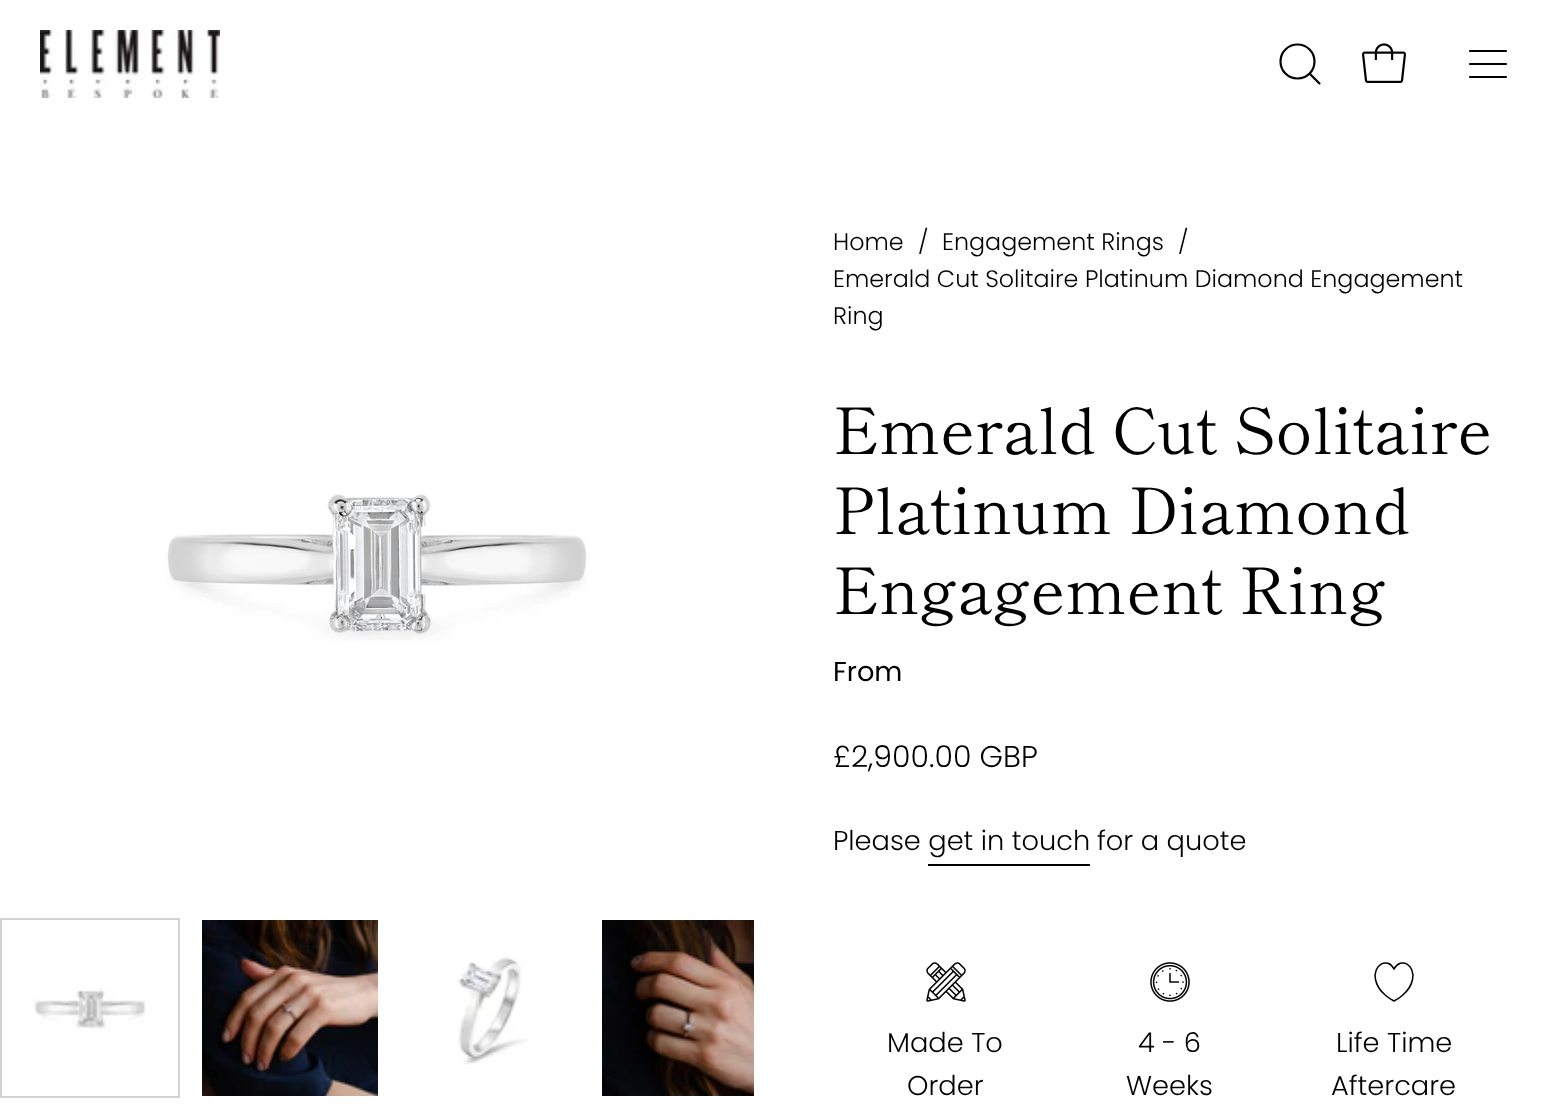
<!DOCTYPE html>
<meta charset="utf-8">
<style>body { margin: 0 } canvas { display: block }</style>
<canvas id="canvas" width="1546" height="1110"></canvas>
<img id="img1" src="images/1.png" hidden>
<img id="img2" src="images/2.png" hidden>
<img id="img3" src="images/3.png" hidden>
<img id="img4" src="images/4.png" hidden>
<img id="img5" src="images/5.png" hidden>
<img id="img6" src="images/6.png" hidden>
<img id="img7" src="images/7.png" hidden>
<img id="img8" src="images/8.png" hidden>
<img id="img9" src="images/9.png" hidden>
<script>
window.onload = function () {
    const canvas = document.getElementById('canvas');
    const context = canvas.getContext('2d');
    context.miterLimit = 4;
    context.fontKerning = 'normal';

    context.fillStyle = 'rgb(255, 255, 255)';
    context.fillRect(0, 0, 1546, 1110);
    context.drawImage(document.getElementById('img1'), 40, 30, 180, 68);
    context.beginPath();
    context.moveTo(1297.5, 78.5);
    context.bezierCurveTo(1307, 78.5, 1314.5, 71, 1314.5, 61.5);
    context.bezierCurveTo(1314.5, 52, 1307, 44.5, 1297.5, 44.5);
    context.bezierCurveTo(1288, 44.5, 1280.5, 52, 1280.5, 61.5);
    context.bezierCurveTo(1280.5, 71, 1288, 78.5, 1297.5, 78.5);
    context.closePath();
    context.moveTo(1309.5, 73.5);
    context.lineTo(1319.5, 83.5);
    context.strokeStyle = 'rgb(0, 0, 0)';
    context.lineWidth = 2.2;
    context.lineCap = 'round';
    context.lineJoin = 'round';
    context.stroke();
    context.drawImage(document.getElementById('img2'), 1362, 43, 44, 40);
    context.beginPath();
    context.moveTo(1470, 64);
    context.lineTo(1506, 64);
    context.moveTo(1470, 51);
    context.lineTo(1506, 51);
    context.moveTo(1470, 77);
    context.lineTo(1506, 77);
    context.stroke();
    context.drawImage(document.getElementById('img3'), 165, 494, 422, 147);
    context.strokeStyle = 'rgb(211, 211, 211)';
    context.lineWidth = 2;
    context.lineJoin = 'miter';
    context.strokeRect(1, 919, 178, 178);
    context.drawImage(document.getElementById('img4'), 34, 987, 111, 43);
    context.drawImage(document.getElementById('img5'), 202, 920, 176, 176);
    context.drawImage(document.getElementById('img6'), 458, 957, 70, 108);
    context.drawImage(document.getElementById('img7'), 602, 920, 152, 176);
    context.fillStyle = 'rgb(0, 0, 0)';
    context.fillRect(928, 864, 162, 2);
    context.drawImage(document.getElementById('img8'), 926, 962, 40, 40);
    context.drawImage(document.getElementById('img9'), 1150, 962, 40, 40);
    context.beginPath();
    context.moveTo(1394, 969);
    context.bezierCurveTo(1387.5, 956.5, 1372.5, 965, 1375.5, 979.5);
    context.bezierCurveTo(1378, 993.5, 1394, 1001, 1394, 1001);
    context.bezierCurveTo(1394, 1001, 1410, 993.5, 1412.5, 979.5);
    context.bezierCurveTo(1415.5, 965, 1401, 956.5, 1394, 969);
    context.closePath();
    context.strokeStyle = 'rgb(0, 0, 0)';
    context.lineWidth = 1.5;
    context.lineCap = 'butt';
    context.stroke();
    context.font = '300 23.8px Poppins';
    context.fillText('Home', 833, 250);
    context.fillText('/', 918, 250);
    context.fillText('Engagement Rings', 942, 250);
    context.fillText('/', 1178, 250);
    context.fillText('Emerald Cut Solitaire Platinum Diamond Engagement', 833, 287);
    context.fillText('Ring', 833, 324);
    context.font = '64px Shippori Mincho';
    context.fillText('Emerald Cut Solitaire', 833, 454);
    context.fillText('Platinum Diamond', 833, 534);
    context.fillText('Engagement Ring', 833, 614);
    context.font = '27.25px Poppins';
    context.fillText('From', 833, 681);
    context.font = '300 30px Poppins';
    context.fillText('£2,900.00 GBP', 833, 767);
    context.font = '300 27.25px Poppins';
    context.fillText('Please get in touch', 833, 850);
    context.fillText('for a quote', 1097, 850);
    context.fillText('Made To', 887, 1052);
    context.fillText('Order', 907, 1095);
    context.fillText('4 - 6', 1138, 1052);
    context.fillText('Weeks', 1126, 1095);
    context.fillText('Life Time', 1336, 1052);
    context.fillText('Aftercare', 1331, 1095);
};
</script>
